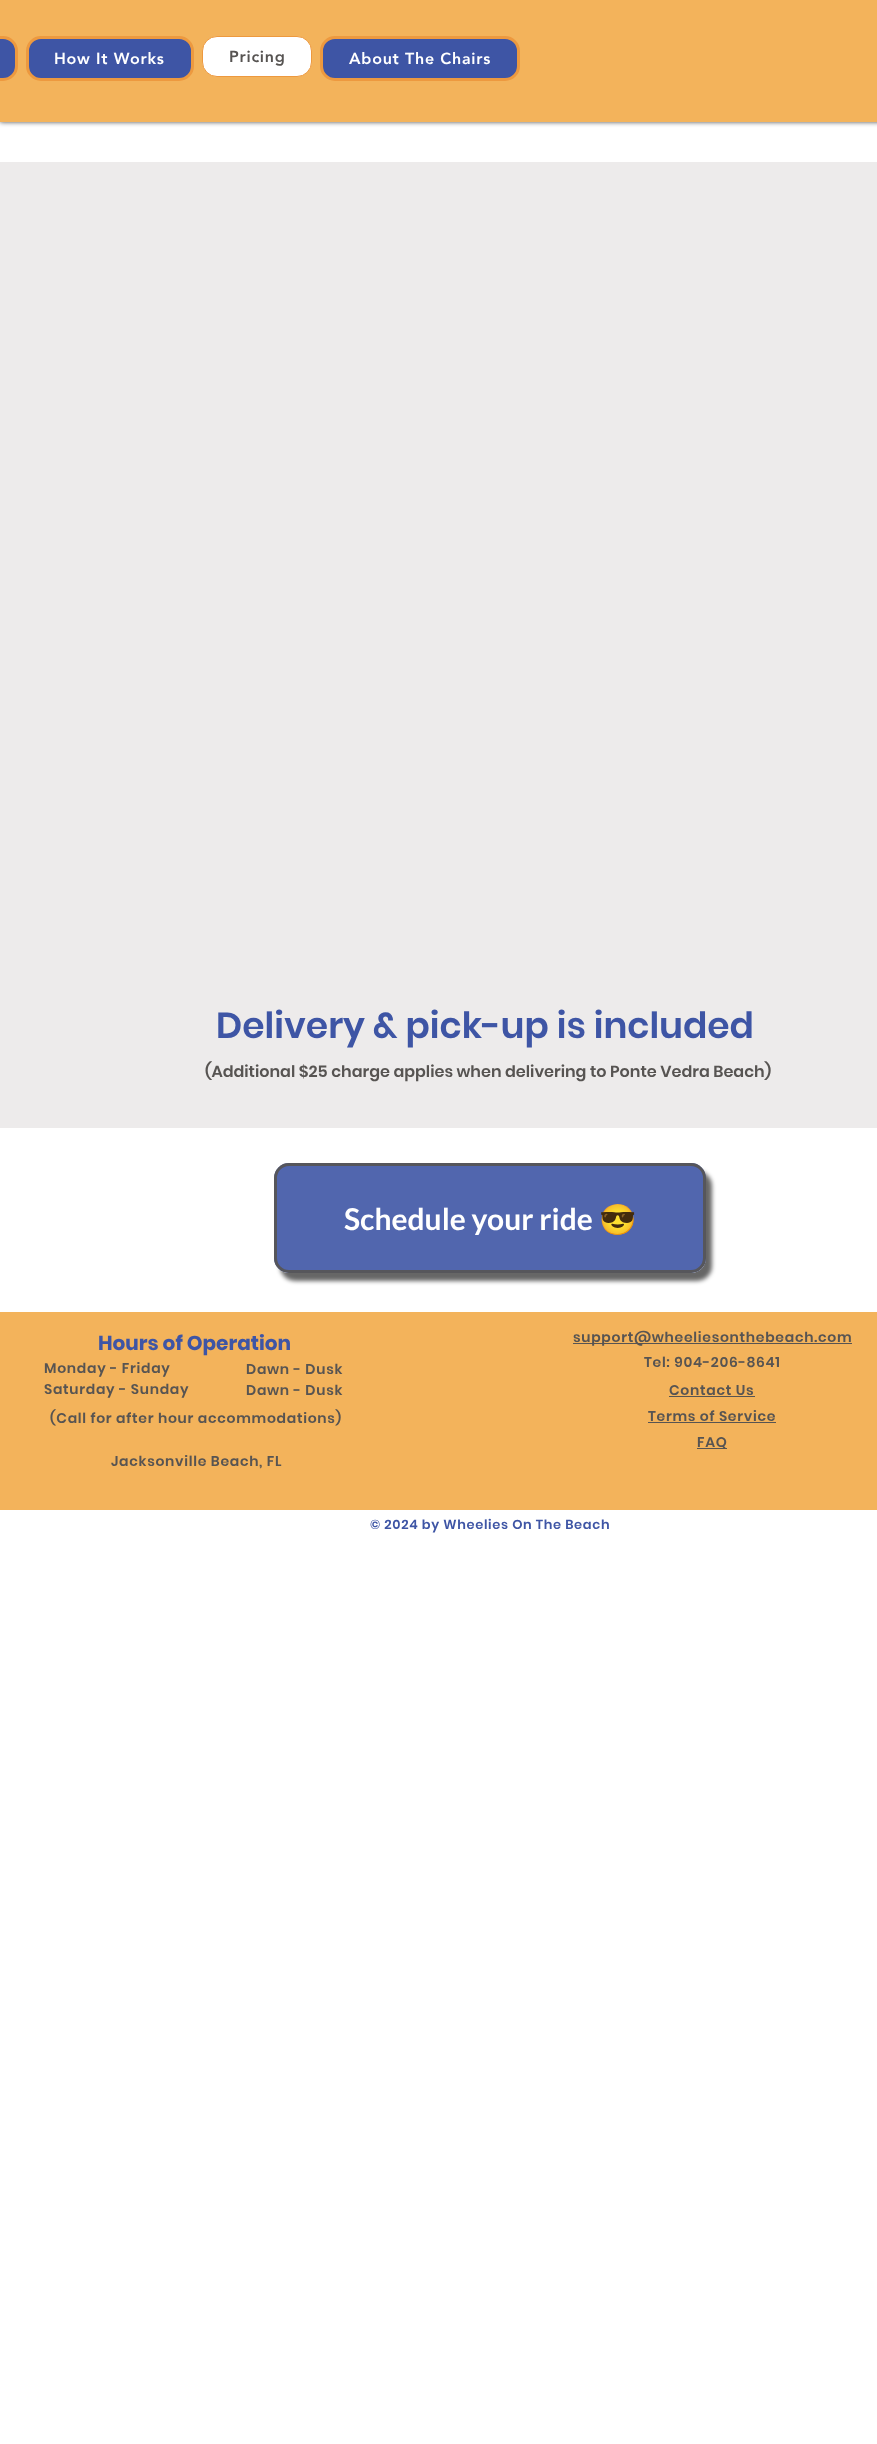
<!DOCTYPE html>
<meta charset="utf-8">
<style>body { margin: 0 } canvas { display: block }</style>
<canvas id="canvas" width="877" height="2444"></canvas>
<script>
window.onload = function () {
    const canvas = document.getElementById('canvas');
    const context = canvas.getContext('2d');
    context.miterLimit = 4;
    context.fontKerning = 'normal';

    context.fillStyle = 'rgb(255, 255, 255)';
    context.fillRect(0, 0, 877, 2444);
    context.fillStyle = 'rgba(0, 0, 0, 0.7)';
    context.filter = 'blur(2.5px)';
    context.beginPath();
    context.rect(0, 0, 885, 122);
    context.fill();
    context.filter = 'none';
    context.fillStyle = 'rgb(243, 179, 91)';
    context.fillRect(0, 0, 877, 122);
    context.fillStyle = 'rgb(62, 85, 165)';
    context.beginPath();
    context.roundRect(-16.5, 37.5, 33, 42, 13.5);
    context.fill();
    context.strokeStyle = 'rgb(237, 153, 63)';
    context.lineWidth = 3;
    context.stroke();
    context.beginPath();
    context.roundRect(27.5, 37.5, 165, 42, 13.5);
    context.fill();
    context.stroke();
    context.fillStyle = 'rgb(255, 255, 255)';
    context.beginPath();
    context.roundRect(202.5, 36.5, 109, 40, 14.5);
    context.fill();
    context.lineWidth = 1;
    context.stroke();
    context.fillStyle = 'rgb(62, 85, 165)';
    context.beginPath();
    context.roundRect(321.5, 37.5, 197, 42, 13.5);
    context.fill();
    context.lineWidth = 3;
    context.stroke();
    context.fillStyle = 'rgb(237, 235, 235)';
    context.fillRect(0, 162, 877, 966);
    context.save();
    context.beginPath();
    context.moveTo(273, 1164);
    context.lineTo(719, 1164);
    context.lineTo(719, 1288);
    context.lineTo(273, 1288);
    context.closePath();
    context.moveTo(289, 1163);
    context.lineTo(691, 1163);
    context.bezierCurveTo(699.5, 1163, 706, 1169.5, 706, 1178);
    context.lineTo(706, 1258);
    context.bezierCurveTo(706, 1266.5, 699.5, 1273, 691, 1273);
    context.lineTo(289, 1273);
    context.bezierCurveTo(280.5, 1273, 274, 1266.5, 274, 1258);
    context.lineTo(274, 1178);
    context.bezierCurveTo(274, 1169.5, 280.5, 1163, 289, 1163);
    context.closePath();
    context.clip('evenodd');
    context.fillStyle = 'rgba(0, 0, 0, 0.6)';
    context.filter = 'blur(2px)';
    context.beginPath();
    context.roundRect(280, 1171, 432, 110, 15);
    context.fill();
    context.filter = 'none';
    context.restore();
    context.fillStyle = 'rgba(62, 85, 165, 0.9)';
    context.beginPath();
    context.roundRect(274, 1163, 432, 110, 15);
    context.fill();
    context.beginPath();
    context.roundRect(275.5, 1164.5, 429, 107, 13.5);
    context.strokeStyle = 'rgba(87, 84, 82, 0.9)';
    context.stroke();
    context.fillStyle = 'rgb(243, 179, 91)';
    context.fillRect(0, 1312, 877, 198);
    context.fillStyle = 'rgb(87, 84, 82)';
    context.fillRect(573, 1343, 279, 1);
    context.fillRect(669, 1396, 86, 1);
    context.fillRect(648, 1422, 128, 1);
    context.fillRect(697, 1448, 30, 1);
    context.letterSpacing = '0.75px';
    context.font = '900 16px "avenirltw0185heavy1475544"';
    context.fillStyle = 'rgb(255, 255, 255)';
    context.fillText('How It Works', 54, 64);
    context.fillStyle = 'rgb(87, 84, 82)';
    context.fillText('Pricing', 229, 62);
    context.fillStyle = 'rgb(255, 255, 255)';
    context.fillText('About The Chairs', 349, 64);
    context.letterSpacing = '0px';
    context.font = '600 36px Poppins';
    context.fillStyle = 'rgb(62, 85, 165)';
    context.fillText('Delivery & pick-up is included', 216, 1038);
    context.font = '600 16px Poppins';
    context.fillStyle = 'rgb(87, 84, 82)';
    context.fillText('(Additional $25 charge applies when delivering to Ponte Vedra Beach)', 205, 1077);
    context.font = 'bold 30px Lato';
    context.fillStyle = 'rgb(255, 255, 255)';
    context.fillText('Schedule your ride', 344, 1230);
    context.font = 'bold 30px Noto Color Emoji';
    context.fillText('😎', 599, 1230);
    context.font = 'bold 20px Poppins';
    context.fillStyle = 'rgb(62, 85, 165)';
    context.fillText('Hours of Operation', 98, 1350);
    context.letterSpacing = '0.7px';
    context.font = '600 14px Poppins';
    context.fillStyle = 'rgb(87, 84, 82)';
    context.fillText('Monday - Friday', 44, 1373);
    context.fillText('Saturday - Sunday', 44, 1394);
    context.fillText('Dawn - Dusk', 246, 1374);
    context.fillText('Dawn - Dusk', 246, 1395);
    context.fillText('(Call for after hour accommodations)', 50, 1423);
    context.fillText('Jacksonville Beach, FL', 111, 1466);
    context.fillText('support@wheeliesonthebeach.com', 573, 1342);
    context.fillText('Tel: 904-206-8641', 644, 1367);
    context.fillText('Contact Us', 669, 1395);
    context.fillText('Terms of Service', 648, 1421);
    context.fillText('FAQ', 697, 1447);
    context.letterSpacing = '0.65px';
    context.font = '600 13px Poppins';
    context.fillStyle = 'rgb(62, 85, 165)';
    context.fillText('© 2024 by Wheelies On The Beach', 370, 1529);
};
</script>
